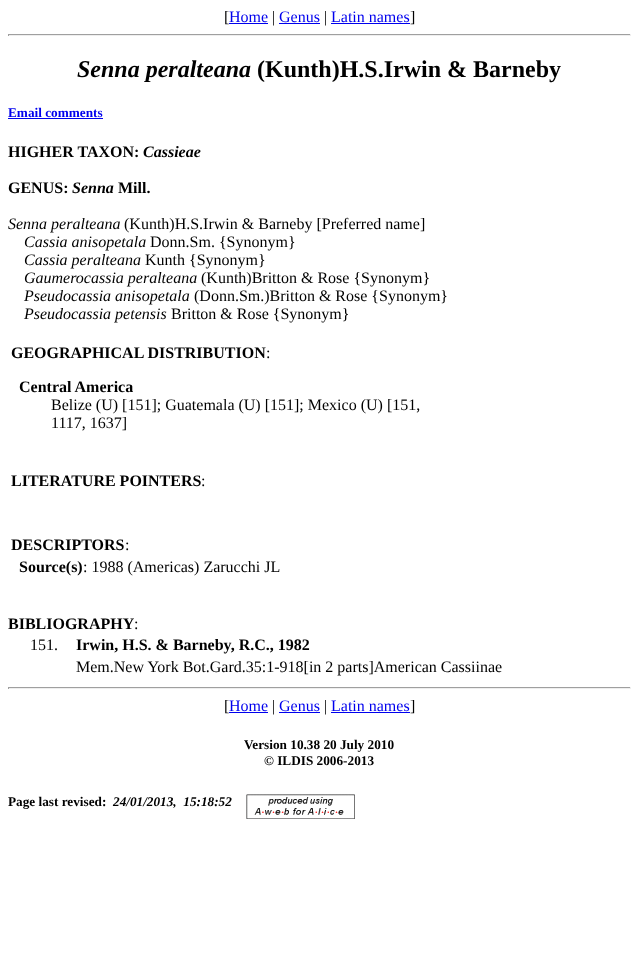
<!DOCTYPE html>
<meta charset="utf-8">
<style>body { margin: 0 } canvas { display: block }</style>
<canvas id="canvas" width="639" height="980"></canvas>
<img id="img1" src="images/1.png" hidden>
<script>
window.onload = function () {
    const canvas = document.getElementById('canvas');
    const context = canvas.getContext('2d');
    context.miterLimit = 4;
    context.fontKerning = 'normal';

    context.fillStyle = 'rgb(255, 255, 255)';
    context.fillRect(0, 0, 639, 980);
    context.fillStyle = 'rgb(0, 0, 238)';
    context.fillRect(229, 23, 39, 1);
    context.fillRect(279, 23, 41, 1);
    context.fillRect(331, 23, 79, 1);
    context.fillStyle = 'rgb(159, 159, 159)';
    context.fillRect(8, 34, 623, 1);
    context.fillStyle = 'rgb(238, 238, 238)';
    context.fillRect(630, 34, 1, 2);
    context.fillRect(8, 35, 623, 1);
    context.fillStyle = 'rgb(159, 159, 159)';
    context.fillRect(8, 34, 1, 2);
    context.fillStyle = 'rgb(0, 0, 238)';
    context.fillRect(8, 118, 95, 1);
    context.fillStyle = 'rgb(159, 159, 159)';
    context.fillRect(8, 687, 623, 1);
    context.fillStyle = 'rgb(238, 238, 238)';
    context.fillRect(630, 687, 1, 2);
    context.fillRect(8, 688, 623, 1);
    context.fillStyle = 'rgb(159, 159, 159)';
    context.fillRect(8, 687, 1, 2);
    context.fillStyle = 'rgb(0, 0, 238)';
    context.fillRect(229, 712, 39, 1);
    context.fillRect(279, 712, 41, 1);
    context.fillRect(331, 712, 79, 1);
    context.drawImage(document.getElementById('img1'), 246, 794, 109, 25);
    context.font = '16px Liberation Serif';
    context.fillStyle = 'rgb(0, 0, 0)';
    context.fillText('[', 224, 22);
    context.fillStyle = 'rgb(0, 0, 238)';
    context.fillText('Home', 229, 22);
    context.fillStyle = 'rgb(0, 0, 0)';
    context.fillText('|', 272, 22);
    context.fillStyle = 'rgb(0, 0, 238)';
    context.fillText('Genus', 279, 22);
    context.fillStyle = 'rgb(0, 0, 0)';
    context.fillText('|', 324, 22);
    context.fillStyle = 'rgb(0, 0, 238)';
    context.fillText('Latin names', 331, 22);
    context.fillStyle = 'rgb(0, 0, 0)';
    context.fillText(']', 410, 22);
    context.font = 'italic bold 24px Liberation Serif';
    context.fillText('Senna peralteana', 77, 77);
    context.font = 'bold 24px Liberation Serif';
    context.fillText('(Kunth)H.S.Irwin & Barneby', 257, 77);
    context.font = 'bold 13.25px Liberation Serif';
    context.fillStyle = 'rgb(0, 0, 238)';
    context.fillText('Email comments', 8, 117);
    context.font = 'bold 16px Liberation Serif';
    context.fillStyle = 'rgb(0, 0, 0)';
    context.fillText('HIGHER TAXON:', 8, 157);
    context.font = 'italic bold 16px Liberation Serif';
    context.fillText('Cassieae', 143, 157);
    context.font = 'bold 16px Liberation Serif';
    context.fillText('GENUS:', 8, 193);
    context.font = 'italic bold 16px Liberation Serif';
    context.fillText('Senna', 72, 193);
    context.font = 'bold 16px Liberation Serif';
    context.fillText('Mill.', 118, 193);
    context.font = 'italic 16px Liberation Serif';
    context.fillText('Senna peralteana', 8, 229);
    context.font = '16px Liberation Serif';
    context.fillText('(Kunth)H.S.Irwin & Barneby [Preferred name]', 124, 229);
    context.font = 'italic 16px Liberation Serif';
    context.fillText('Cassia anisopetala', 24, 247);
    context.font = '16px Liberation Serif';
    context.fillText('Donn.Sm. {Synonym}', 150, 247);
    context.font = 'italic 16px Liberation Serif';
    context.fillText('Cassia peralteana', 24, 265);
    context.font = '16px Liberation Serif';
    context.fillText('Kunth {Synonym}', 145, 265);
    context.font = 'italic 16px Liberation Serif';
    context.fillText('Gaumerocassia peralteana', 24, 283);
    context.font = '16px Liberation Serif';
    context.fillText('(Kunth)Britton & Rose {Synonym}', 201, 283);
    context.font = 'italic 16px Liberation Serif';
    context.fillText('Pseudocassia anisopetala', 24, 301);
    context.font = '16px Liberation Serif';
    context.fillText('(Donn.Sm.)Britton & Rose {Synonym}', 194, 301);
    context.font = 'italic 16px Liberation Serif';
    context.fillText('Pseudocassia petensis', 24, 319);
    context.font = '16px Liberation Serif';
    context.fillText('Britton & Rose {Synonym}', 171, 319);
    context.font = 'bold 16px Liberation Serif';
    context.fillText('GEOGRAPHICAL DISTRIBUTION', 11, 358);
    context.font = '16px Liberation Serif';
    context.fillText(':', 266, 358);
    context.font = 'bold 16px Liberation Serif';
    context.fillText('Central America', 19, 392);
    context.font = '16px Liberation Serif';
    context.fillText('Belize (U) [151]; Guatemala (U) [151]; Mexico (U) [151,', 51, 410);
    context.fillText('1117, 1637]', 51, 428);
    context.font = 'bold 16px Liberation Serif';
    context.fillText('LITERATURE POINTERS', 11, 486);
    context.font = '16px Liberation Serif';
    context.fillText(':', 201, 486);
    context.font = 'bold 16px Liberation Serif';
    context.fillText('DESCRIPTORS', 11, 550);
    context.font = '16px Liberation Serif';
    context.fillText(':', 125, 550);
    context.font = 'bold 16px Liberation Serif';
    context.fillText('Source(s)', 19, 572);
    context.font = '16px Liberation Serif';
    context.fillText(': 1988 (Americas) Zarucchi JL', 83, 572);
    context.font = 'bold 16px Liberation Serif';
    context.fillText('BIBLIOGRAPHY', 8, 629);
    context.font = '16px Liberation Serif';
    context.fillText(':', 134, 629);
    context.fillText('151.', 30, 650);
    context.font = 'bold 16px Liberation Serif';
    context.fillText('Irwin, H.S. & Barneby, R.C., 1982', 76, 650);
    context.font = '16px Liberation Serif';
    context.fillText('Mem.New York Bot.Gard.35:1-918[in 2 parts]American Cassiinae', 76, 672);
    context.fillText('[', 224, 711);
    context.fillStyle = 'rgb(0, 0, 238)';
    context.fillText('Home', 229, 711);
    context.fillStyle = 'rgb(0, 0, 0)';
    context.fillText('|', 272, 711);
    context.fillStyle = 'rgb(0, 0, 238)';
    context.fillText('Genus', 279, 711);
    context.fillStyle = 'rgb(0, 0, 0)';
    context.fillText('|', 324, 711);
    context.fillStyle = 'rgb(0, 0, 238)';
    context.fillText('Latin names', 331, 711);
    context.fillStyle = 'rgb(0, 0, 0)';
    context.fillText(']', 410, 711);
    context.font = 'bold 13.25px Liberation Serif';
    context.fillText('Version 10.38 20 July 2010', 244, 749);
    context.fillText('© ILDIS 2006-2013', 264, 765);
    context.fillText('Page last revised:', 8, 806);
    context.font = 'italic bold 13.25px Liberation Serif';
    context.fillText('24/01/2013,  15:18:52', 113, 806);
};
</script>
